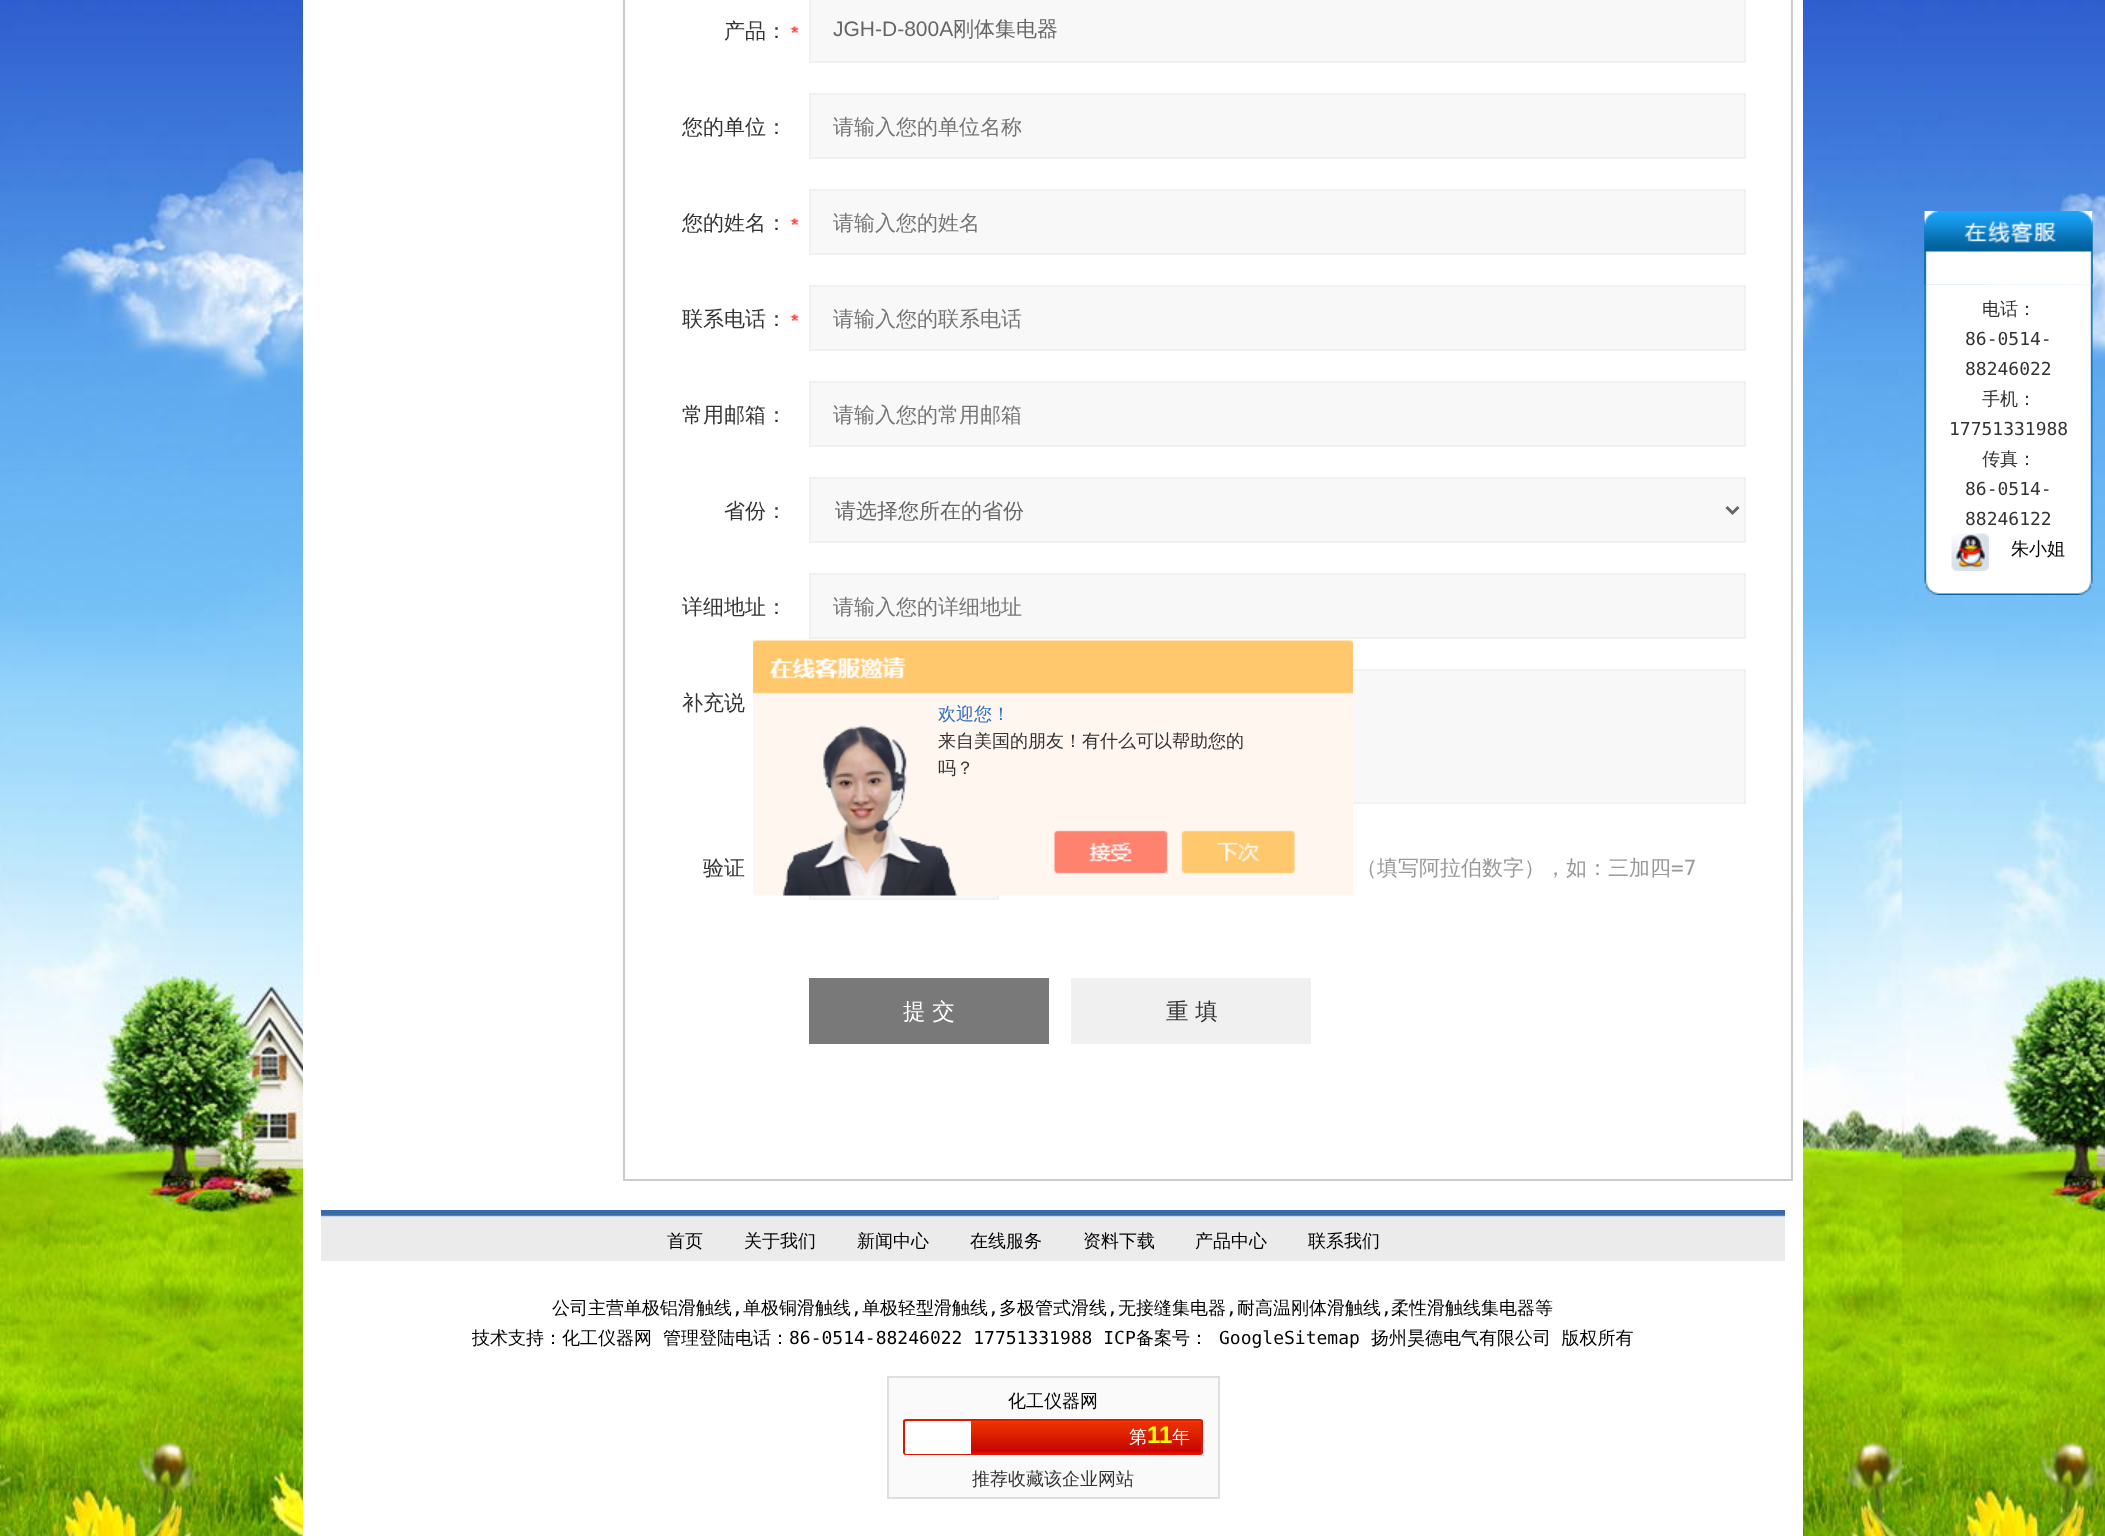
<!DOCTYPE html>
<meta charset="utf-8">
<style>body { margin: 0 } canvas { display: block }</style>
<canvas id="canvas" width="2105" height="1536"></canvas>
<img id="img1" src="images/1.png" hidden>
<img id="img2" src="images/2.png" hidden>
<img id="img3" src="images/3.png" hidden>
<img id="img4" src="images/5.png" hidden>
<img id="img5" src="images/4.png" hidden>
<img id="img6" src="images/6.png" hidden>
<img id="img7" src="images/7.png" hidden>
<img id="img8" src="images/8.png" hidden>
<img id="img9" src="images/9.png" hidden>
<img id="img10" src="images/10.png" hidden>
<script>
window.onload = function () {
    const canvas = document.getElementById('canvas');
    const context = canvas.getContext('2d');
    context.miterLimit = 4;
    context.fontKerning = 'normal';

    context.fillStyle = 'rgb(255, 255, 255)';
    context.fillRect(0, 0, 2105, 1536);
    context.drawImage(document.getElementById('img1'), 0, 0, 2105, 1536);
    context.fillRect(303, 0, 1500, 1536);
    context.strokeStyle = 'rgb(204, 204, 204)';
    context.lineWidth = 2;
    context.strokeRect(624, -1, 1168, 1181);
    context.drawImage(document.getElementById('img2'), 790, 26, 9, 7);
    context.fillStyle = 'rgb(248, 248, 248)';
    context.beginPath();
    context.rect(810, -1, 935, 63);
    context.fill();
    context.strokeStyle = 'rgb(241, 241, 241)';
    context.stroke();
    context.beginPath();
    context.rect(810, 94, 935, 64);
    context.fill();
    context.stroke();
    context.drawImage(document.getElementById('img2'), 790, 218, 9, 7);
    context.beginPath();
    context.rect(810, 190, 935, 64);
    context.fill();
    context.stroke();
    context.drawImage(document.getElementById('img2'), 790, 314, 9, 7);
    context.beginPath();
    context.rect(810, 286, 935, 64);
    context.fill();
    context.stroke();
    context.beginPath();
    context.rect(810, 382, 935, 64);
    context.fill();
    context.stroke();
    context.beginPath();
    context.rect(810, 478, 935, 64);
    context.fill();
    context.stroke();
    context.beginPath();
    context.moveTo(1726.5, 507);
    context.lineTo(1732.5, 513);
    context.lineTo(1738.5, 507);
    context.strokeStyle = 'rgb(102, 102, 102)';
    context.lineWidth = 3;
    context.stroke();
    context.beginPath();
    context.rect(810, 574, 935, 64);
    context.fill();
    context.strokeStyle = 'rgb(241, 241, 241)';
    context.lineWidth = 2;
    context.stroke();
    context.fillRect(1353, 671, 391, 131);
    context.strokeRect(810, 670, 935, 133);
    context.fillRect(811, 895, 186, 3);
    context.strokeRect(810, 835, 188, 64);
    context.fillStyle = 'rgb(121, 121, 121)';
    context.fillRect(809, 978, 240, 66);
    context.fillStyle = 'rgb(240, 240, 240)';
    context.fillRect(1071, 978, 240, 66);
    context.drawImage(document.getElementById('img3'), 1924, 211, 169, 74);
    context.drawImage(document.getElementById('img4'), 1924, 284, 169, 287);
    context.drawImage(document.getElementById('img5'), 1924, 211, 169, 74);
    context.drawImage(document.getElementById('img6'), 1951, 533, 38, 38);
    context.drawImage(document.getElementById('img7'), 1924, 571, 169, 24);
    context.drawImage(document.getElementById('img8'), 321, 1210, 1464, 51);
    context.fillStyle = 'rgb(250, 250, 250)';
    context.beginPath();
    context.rect(888, 1377, 331, 121);
    context.fill();
    context.strokeStyle = 'rgb(223, 223, 223)';
    context.stroke();
    context.drawImage(document.getElementById('img9'), 903, 1420, 300, 33);
    context.beginPath();
    context.roundRect(904, 1420, 298, 34, 2);
    context.strokeStyle = 'rgb(223, 23, 0)';
    context.stroke();
    context.fillStyle = 'rgb(255, 255, 255)';
    context.beginPath();
    context.roundRect(905, 1421, 66, 33, [1.5, 0, 0, 1.5]);
    context.fill();
    context.drawImage(document.getElementById('img10'), 753, 640, 600, 256);
    context.font = '500 21px WenQuanYi Zen Hei';
    context.fillStyle = 'rgb(51, 51, 51)';
    context.fillText('产品：', 724, 38);
    context.font = '21px Liberation Sans';
    context.fillStyle = 'rgb(102, 102, 102)';
    context.fillText('JGH-D-800A', 833, 36);
    context.font = '500 21px WenQuanYi Zen Hei';
    context.fillText('刚体集电器', 953, 36);
    context.fillStyle = 'rgb(51, 51, 51)';
    context.fillText('您的单位：', 682, 134);
    context.fillStyle = 'rgb(117, 117, 117)';
    context.fillText('请输入您的单位名称', 833, 134);
    context.fillStyle = 'rgb(51, 51, 51)';
    context.fillText('您的姓名：', 682, 230);
    context.fillStyle = 'rgb(117, 117, 117)';
    context.fillText('请输入您的姓名', 833, 230);
    context.fillStyle = 'rgb(51, 51, 51)';
    context.fillText('联系电话：', 682, 326);
    context.fillStyle = 'rgb(117, 117, 117)';
    context.fillText('请输入您的联系电话', 833, 326);
    context.fillStyle = 'rgb(51, 51, 51)';
    context.fillText('常用邮箱：', 682, 422);
    context.fillStyle = 'rgb(117, 117, 117)';
    context.fillText('请输入您的常用邮箱', 833, 422);
    context.fillStyle = 'rgb(51, 51, 51)';
    context.fillText('省份：', 724, 518);
    context.fillStyle = 'rgb(102, 102, 102)';
    context.fillText('请选择您所在的省份', 835, 518);
    context.fillStyle = 'rgb(51, 51, 51)';
    context.fillText('详细地址：', 682, 614);
    context.fillStyle = 'rgb(117, 117, 117)';
    context.fillText('请输入您的详细地址', 833, 614);
    context.fillStyle = 'rgb(51, 51, 51)';
    context.fillText('补充说', 682, 710);
    context.fillText('验证', 703, 875);
    context.fillStyle = 'rgb(153, 153, 153)';
    context.fillText('（填写阿拉伯数字），如：三加四', 1356, 875);
    context.font = '21px DejaVu Sans Mono';
    context.fillText('=7', 1671, 875);
    context.font = '500 22.5px WenQuanYi Zen Hei';
    context.fillStyle = 'rgb(255, 255, 255)';
    context.fillText('提 交', 903, 1019);
    context.fillStyle = 'rgb(51, 51, 51)';
    context.fillText('重 填', 1166, 1019);
    context.font = '500 18px WenQuanYi Zen Hei';
    context.fillText('电话：', 1982, 315);
    context.font = '18px DejaVu Sans Mono';
    context.fillText('86-0514-', 1965, 345);
    context.fillText('88246022', 1965, 375);
    context.font = '500 18px WenQuanYi Zen Hei';
    context.fillText('手机：', 1982, 405);
    context.font = '18px DejaVu Sans Mono';
    context.fillText('17751331988', 1949, 435);
    context.font = '500 18px WenQuanYi Zen Hei';
    context.fillText('传真：', 1982, 465);
    context.font = '18px DejaVu Sans Mono';
    context.fillText('86-0514-', 1965, 495);
    context.fillText('88246122', 1965, 525);
    context.font = '500 18px WenQuanYi Zen Hei';
    context.fillStyle = 'rgb(0, 0, 0)';
    context.fillText('朱小姐', 2011, 555);
    context.fillText('首页', 667, 1247);
    context.fillText('关于我们', 744, 1247);
    context.fillText('新闻中心', 857, 1247);
    context.fillText('在线服务', 970, 1247);
    context.fillText('资料下载', 1083, 1247);
    context.fillText('产品中心', 1195, 1247);
    context.fillText('联系我们', 1308, 1247);
    context.fillText('公司主营单极铝滑触线', 552, 1314);
    context.font = '18px DejaVu Sans Mono';
    context.fillText(',', 732, 1314);
    context.font = '500 18px WenQuanYi Zen Hei';
    context.fillText('单极铜滑触线', 743, 1314);
    context.font = '18px DejaVu Sans Mono';
    context.fillText(',', 851, 1314);
    context.font = '500 18px WenQuanYi Zen Hei';
    context.fillText('单极轻型滑触线', 862, 1314);
    context.font = '18px DejaVu Sans Mono';
    context.fillText(',', 988, 1314);
    context.font = '500 18px WenQuanYi Zen Hei';
    context.fillText('多极管式滑线', 999, 1314);
    context.font = '18px DejaVu Sans Mono';
    context.fillText(',', 1107, 1314);
    context.font = '500 18px WenQuanYi Zen Hei';
    context.fillText('无接缝集电器', 1118, 1314);
    context.font = '18px DejaVu Sans Mono';
    context.fillText(',', 1226, 1314);
    context.font = '500 18px WenQuanYi Zen Hei';
    context.fillText('耐高温刚体滑触线', 1237, 1314);
    context.font = '18px DejaVu Sans Mono';
    context.fillText(',', 1381, 1314);
    context.font = '500 18px WenQuanYi Zen Hei';
    context.fillText('柔性滑触线集电器等', 1391, 1314);
    context.fillText('技术支持：化工仪器网', 472, 1344);
    context.fillText('管理登陆电话：', 663, 1344);
    context.font = '18px DejaVu Sans Mono';
    context.fillText('86-0514-88246022 17751331988 ICP', 789, 1344);
    context.font = '500 18px WenQuanYi Zen Hei';
    context.fillText('备案号：', 1136, 1344);
    context.font = '18px DejaVu Sans Mono';
    context.fillText('GoogleSitemap', 1219, 1344);
    context.wordSpacing = '5px';
    context.font = '500 18px WenQuanYi Zen Hei';
    context.fillText('扬州昊德电气有限公司 版权所有', 1371, 1344);
    context.wordSpacing = '0px';
    context.fillText('化工仪器网', 1008, 1407);
    context.fillStyle = 'rgb(255, 255, 255)';
    context.fillText('第', 1129, 1443);
    context.font = 'bold 24px Liberation Sans';
    context.fillStyle = 'rgb(252, 255, 0)';
    context.fillText('11', 1147, 1443);
    context.font = '500 18px WenQuanYi Zen Hei';
    context.fillStyle = 'rgb(255, 255, 255)';
    context.fillText('年', 1172, 1443);
    context.fillStyle = 'rgb(51, 51, 51)';
    context.fillText('推荐收藏该企业网站', 972, 1485);
    context.fillStyle = 'rgb(46, 110, 198)';
    context.fillText('欢迎您！', 938, 720);
    context.fillStyle = 'rgb(51, 51, 51)';
    context.fillText('来自美国的朋友！有什么可以帮助您的', 938, 747);
    context.fillText('吗？', 938, 774);
};
</script>
